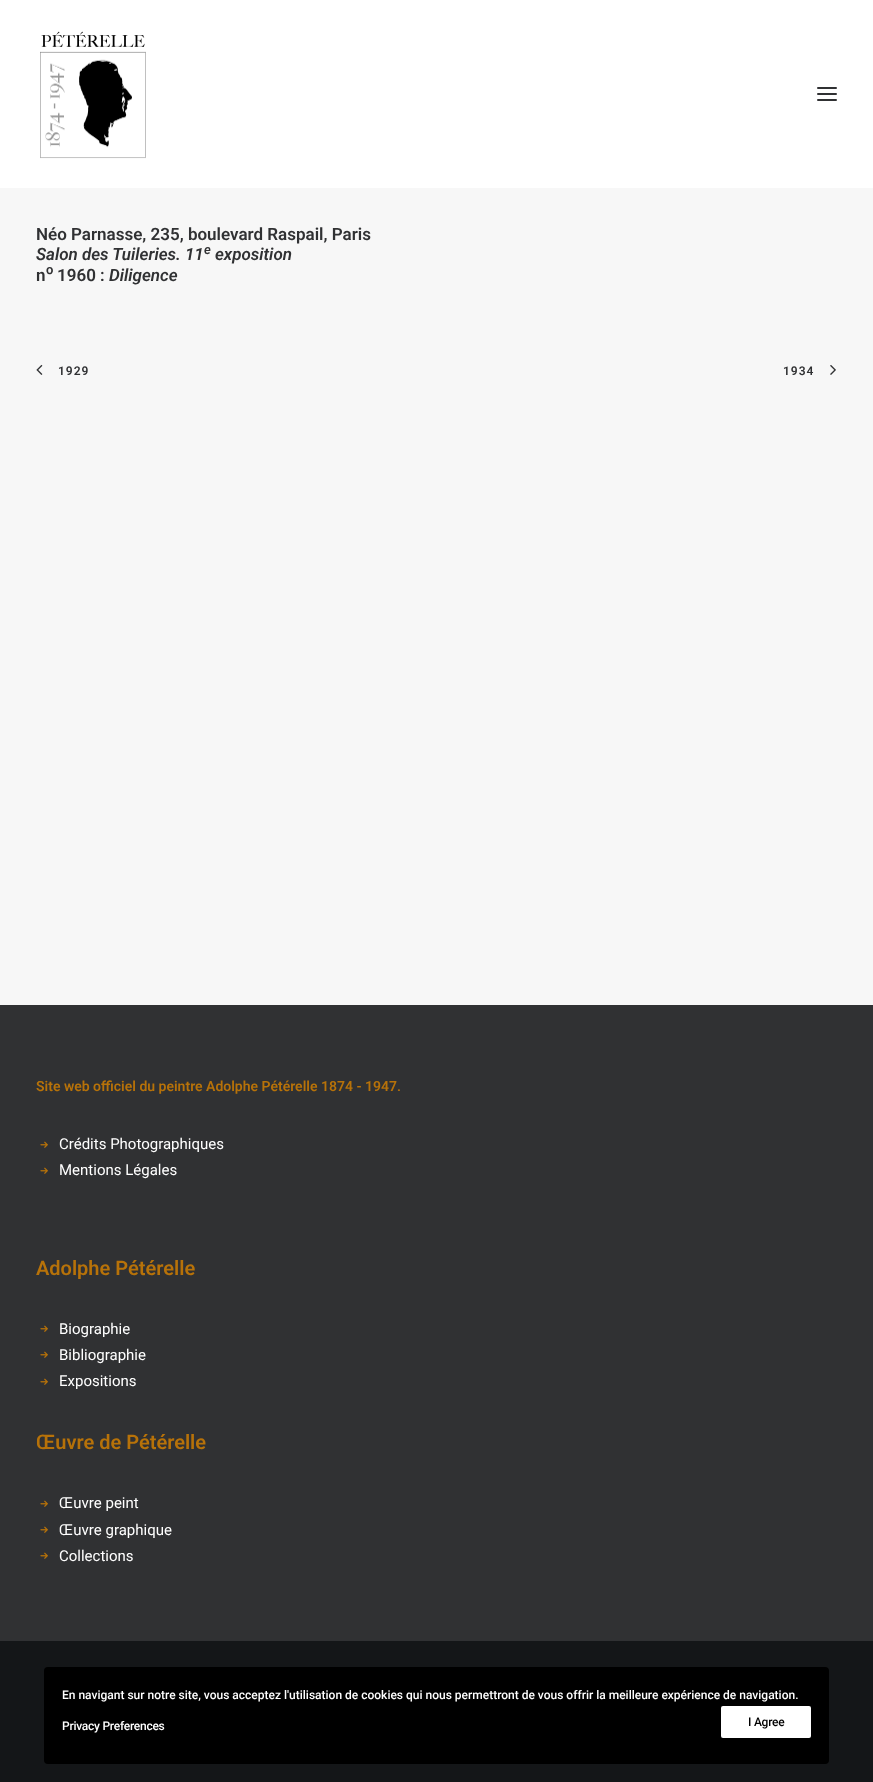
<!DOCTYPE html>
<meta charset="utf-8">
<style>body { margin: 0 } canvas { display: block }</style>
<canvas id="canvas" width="873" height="1782"></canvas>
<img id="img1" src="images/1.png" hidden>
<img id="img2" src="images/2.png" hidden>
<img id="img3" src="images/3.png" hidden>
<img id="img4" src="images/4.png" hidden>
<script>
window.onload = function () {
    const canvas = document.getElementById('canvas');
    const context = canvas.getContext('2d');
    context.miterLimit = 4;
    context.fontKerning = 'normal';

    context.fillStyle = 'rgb(247, 247, 247)';
    context.fillRect(0, 0, 873, 1782);
    context.fillStyle = 'rgb(255, 255, 255)';
    context.fillRect(0, 0, 873, 188);
    context.drawImage(document.getElementById('img1'), 40, 31, 106, 128);
    context.fillStyle = 'rgb(48, 49, 51)';
    context.beginPath();
    context.roundRect(817, 93, 20, 2, 1);
    context.fill();
    context.beginPath();
    context.roundRect(817, 87, 20, 2, 1);
    context.fill();
    context.beginPath();
    context.roundRect(817, 99, 20, 2, 1);
    context.fill();
    context.drawImage(document.getElementById('img2'), 36, 364, 7, 11);
    context.drawImage(document.getElementById('img3'), 830, 365, 6, 10);
    context.fillRect(0, 1005, 873, 636);
    context.drawImage(document.getElementById('img4'), 40, 1141, 8, 7);
    context.drawImage(document.getElementById('img4'), 40, 1167, 8, 7);
    context.drawImage(document.getElementById('img4'), 40, 1325, 8, 7);
    context.drawImage(document.getElementById('img4'), 40, 1351, 8, 7);
    context.drawImage(document.getElementById('img4'), 40, 1378, 8, 7);
    context.drawImage(document.getElementById('img4'), 40, 1500, 8, 7);
    context.drawImage(document.getElementById('img4'), 40, 1526, 8, 7);
    context.drawImage(document.getElementById('img4'), 40, 1552, 8, 7);
    context.fillStyle = 'rgb(20, 22, 24)';
    context.fillRect(0, 1641, 873, 141);
    context.fillStyle = 'rgb(0, 0, 0)';
    context.beginPath();
    context.roundRect(44, 1667, 785, 97, 4);
    context.fill();
    context.fillStyle = 'rgb(255, 255, 255)';
    context.beginPath();
    context.roundRect(721, 1706, 90, 32, 2);
    context.fill();
    context.font = '600 17px Roboto';
    context.fillStyle = 'rgb(48, 49, 51)';
    context.fillText('Néo Parnasse, 235, boulevard Raspail, Paris', 36, 240);
    context.font = 'italic 600 17px Roboto';
    context.fillText('Salon des Tuileries. 11', 36, 260);
    context.font = 'italic 600 13px Roboto';
    context.fillText('e', 204, 254);
    context.font = 'italic 600 17px Roboto';
    context.fillText('exposition', 215, 260);
    context.font = '600 17px Roboto';
    context.fillText('n', 36, 281);
    context.font = '600 13px Roboto';
    context.fillText('o', 46, 274);
    context.font = '600 17px Roboto';
    context.fillText('1960 :', 57, 281);
    context.font = 'italic 600 17px Roboto';
    context.fillText('Diligence', 109, 281);
    context.letterSpacing = '1px';
    context.font = '600 12px Roboto';
    context.fillText('1929', 58, 375);
    context.fillText('1934', 783, 375);
    context.letterSpacing = '0px';
    context.font = '600 14px Roboto';
    context.fillStyle = 'rgb(183, 114, 9)';
    context.fillText('Site web officiel du peintre Adolphe Pétérelle 1874 - 1947.', 36, 1091);
    context.font = '15px Roboto';
    context.fillStyle = 'rgb(255, 255, 255)';
    context.fillText('Crédits Photographiques', 59, 1149);
    context.fillText('Mentions Légales', 59, 1175);
    context.font = '600 20px Roboto';
    context.fillStyle = 'rgb(183, 114, 9)';
    context.fillText('Adolphe Pétérelle', 36, 1275);
    context.font = '15px Roboto';
    context.fillStyle = 'rgb(255, 255, 255)';
    context.fillText('Biographie', 59, 1334);
    context.fillText('Bibliographie', 59, 1360);
    context.fillText('Expositions', 59, 1386);
    context.font = '600 20px Roboto';
    context.fillStyle = 'rgb(183, 114, 9)';
    context.fillText('Œuvre de Pétérelle', 36, 1449);
    context.font = '15px Roboto';
    context.fillStyle = 'rgb(255, 255, 255)';
    context.fillText('Œuvre peint', 59, 1508);
    context.fillText('Œuvre graphique', 59, 1535);
    context.fillText('Collections', 59, 1561);
    context.font = '500 12px Roboto';
    context.fillText('En navigant sur notre site, vous acceptez l\'utilisation de cookies qui nous permettront de vous offrir la meilleure expérience de navigation.', 62, 1699);
    context.letterSpacing = '-0.25px';
    context.fillText('Privacy Preferences', 62, 1730);
    context.fillStyle = 'rgb(0, 0, 0)';
    context.fillText('I Agree', 748, 1726);
};
</script>
